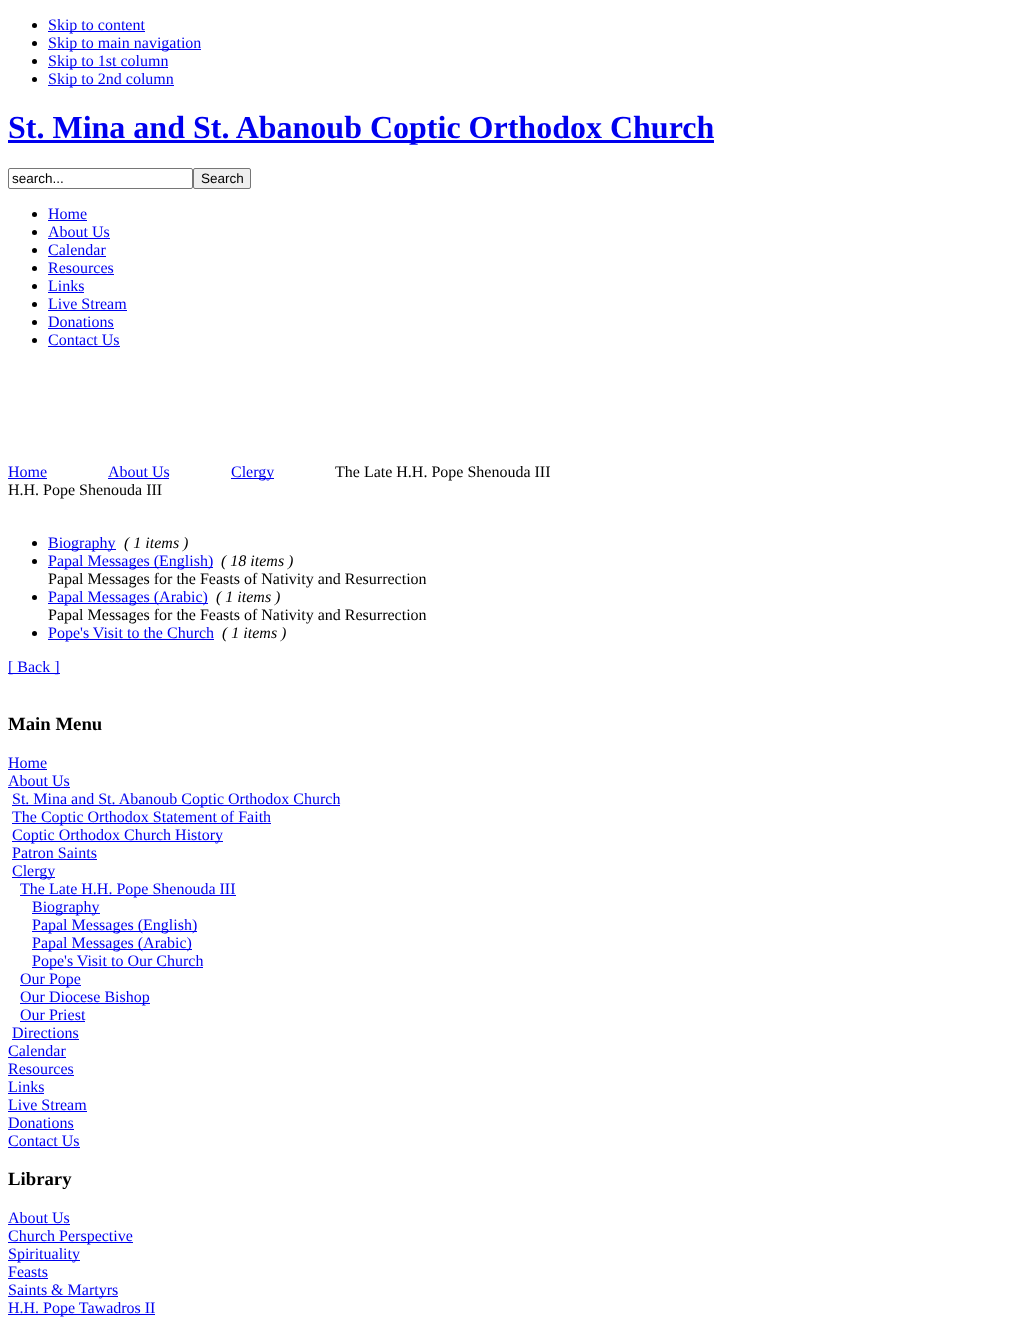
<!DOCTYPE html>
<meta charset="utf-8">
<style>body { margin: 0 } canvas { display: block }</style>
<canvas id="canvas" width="1026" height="1324"></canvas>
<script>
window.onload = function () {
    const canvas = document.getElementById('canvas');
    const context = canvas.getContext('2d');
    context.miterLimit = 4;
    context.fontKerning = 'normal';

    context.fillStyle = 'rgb(255, 255, 255)';
    context.fillRect(0, 0, 1026, 1324);
    context.fillStyle = 'rgb(0, 0, 0)';
    context.beginPath();
    context.arc(34.5, 25.5, 2.5, 0, 2 * Math.PI);
    context.fill();
    context.fillStyle = 'rgb(0, 0, 238)';
    context.fillRect(48, 31, 97, 1);
    context.fillStyle = 'rgb(0, 0, 0)';
    context.beginPath();
    context.arc(34.5, 43.5, 2.5, 0, 2 * Math.PI);
    context.fill();
    context.fillStyle = 'rgb(0, 0, 238)';
    context.fillRect(48, 49, 153, 1);
    context.fillStyle = 'rgb(0, 0, 0)';
    context.beginPath();
    context.arc(34.5, 61.5, 2.5, 0, 2 * Math.PI);
    context.fill();
    context.fillStyle = 'rgb(0, 0, 238)';
    context.fillRect(48, 67, 120, 1);
    context.fillStyle = 'rgb(0, 0, 0)';
    context.beginPath();
    context.arc(34.5, 79.5, 2.5, 0, 2 * Math.PI);
    context.fill();
    context.fillStyle = 'rgb(0, 0, 238)';
    context.fillRect(48, 85, 126, 1);
    context.fillRect(8, 140, 706, 3);
    context.beginPath();
    context.roundRect(8.5, 168.5, 184, 20, 1.5);
    context.strokeStyle = 'rgb(118, 118, 118)';
    context.stroke();
    context.fillStyle = 'rgb(239, 239, 239)';
    context.beginPath();
    context.roundRect(193.5, 168.5, 57, 20, 1.5);
    context.fill();
    context.stroke();
    context.fillStyle = 'rgb(0, 0, 0)';
    context.beginPath();
    context.arc(34.5, 214.5, 2.5, 0, 2 * Math.PI);
    context.fill();
    context.fillStyle = 'rgb(0, 0, 238)';
    context.fillRect(48, 220, 39, 1);
    context.fillStyle = 'rgb(0, 0, 0)';
    context.beginPath();
    context.arc(34.5, 232.5, 2.5, 0, 2 * Math.PI);
    context.fill();
    context.fillStyle = 'rgb(0, 0, 238)';
    context.fillRect(48, 238, 62, 1);
    context.fillStyle = 'rgb(0, 0, 0)';
    context.beginPath();
    context.arc(34.5, 250.5, 2.5, 0, 2 * Math.PI);
    context.fill();
    context.fillStyle = 'rgb(0, 0, 238)';
    context.fillRect(48, 256, 58, 1);
    context.fillStyle = 'rgb(0, 0, 0)';
    context.beginPath();
    context.arc(34.5, 268.5, 2.5, 0, 2 * Math.PI);
    context.fill();
    context.fillStyle = 'rgb(0, 0, 238)';
    context.fillRect(48, 274, 66, 1);
    context.fillStyle = 'rgb(0, 0, 0)';
    context.beginPath();
    context.arc(34.5, 286.5, 2.5, 0, 2 * Math.PI);
    context.fill();
    context.fillStyle = 'rgb(0, 0, 238)';
    context.fillRect(48, 292, 36, 1);
    context.fillStyle = 'rgb(0, 0, 0)';
    context.beginPath();
    context.arc(34.5, 304.5, 2.5, 0, 2 * Math.PI);
    context.fill();
    context.fillStyle = 'rgb(0, 0, 238)';
    context.fillRect(48, 310, 79, 1);
    context.fillStyle = 'rgb(0, 0, 0)';
    context.beginPath();
    context.arc(34.5, 322.5, 2.5, 0, 2 * Math.PI);
    context.fill();
    context.fillStyle = 'rgb(0, 0, 238)';
    context.fillRect(48, 328, 66, 1);
    context.fillStyle = 'rgb(0, 0, 0)';
    context.beginPath();
    context.arc(34.5, 340.5, 2.5, 0, 2 * Math.PI);
    context.fill();
    context.fillStyle = 'rgb(0, 0, 238)';
    context.fillRect(48, 346, 72, 1);
    context.fillRect(8, 478, 39, 1);
    context.fillRect(108, 478, 61, 1);
    context.fillRect(231, 478, 43, 1);
    context.fillStyle = 'rgb(0, 0, 0)';
    context.beginPath();
    context.arc(34.5, 543.5, 2.5, 0, 2 * Math.PI);
    context.fill();
    context.fillStyle = 'rgb(0, 0, 238)';
    context.fillRect(48, 549, 68, 1);
    context.fillStyle = 'rgb(0, 0, 0)';
    context.beginPath();
    context.arc(34.5, 561.5, 2.5, 0, 2 * Math.PI);
    context.fill();
    context.fillStyle = 'rgb(0, 0, 238)';
    context.fillRect(48, 567, 165, 1);
    context.fillStyle = 'rgb(0, 0, 0)';
    context.beginPath();
    context.arc(34.5, 597.5, 2.5, 0, 2 * Math.PI);
    context.fill();
    context.fillStyle = 'rgb(0, 0, 238)';
    context.fillRect(48, 603, 160, 1);
    context.fillStyle = 'rgb(0, 0, 0)';
    context.beginPath();
    context.arc(34.5, 633.5, 2.5, 0, 2 * Math.PI);
    context.fill();
    context.fillStyle = 'rgb(0, 0, 238)';
    context.fillRect(48, 639, 166, 1);
    context.fillRect(8, 673, 52, 1);
    context.fillRect(8, 769, 39, 1);
    context.fillRect(8, 787, 62, 1);
    context.fillRect(12, 805, 328, 1);
    context.fillRect(12, 823, 259, 1);
    context.fillRect(12, 841, 211, 1);
    context.fillRect(12, 859, 85, 1);
    context.fillRect(12, 877, 43, 1);
    context.fillRect(20, 895, 216, 1);
    context.fillRect(32, 913, 68, 1);
    context.fillRect(32, 931, 165, 1);
    context.fillRect(32, 949, 160, 1);
    context.fillRect(32, 967, 171, 1);
    context.fillRect(20, 985, 61, 1);
    context.fillRect(20, 1003, 130, 1);
    context.fillRect(20, 1021, 65, 1);
    context.fillRect(12, 1039, 67, 1);
    context.fillRect(8, 1057, 58, 1);
    context.fillRect(8, 1075, 66, 1);
    context.fillRect(8, 1093, 36, 1);
    context.fillRect(8, 1111, 79, 1);
    context.fillRect(8, 1129, 66, 1);
    context.fillRect(8, 1147, 72, 1);
    context.fillRect(8, 1224, 62, 1);
    context.fillRect(8, 1242, 125, 1);
    context.fillRect(8, 1260, 72, 1);
    context.fillRect(8, 1278, 40, 1);
    context.fillRect(8, 1296, 110, 1);
    context.fillRect(8, 1314, 147, 1);
    context.font = '16px Liberation Serif';
    context.fillText('Skip to content', 48, 30);
    context.fillText('Skip to main navigation', 48, 48);
    context.fillText('Skip to 1st column', 48, 66);
    context.fillText('Skip to 2nd column', 48, 84);
    context.font = 'bold 32px Liberation Serif';
    context.fillText('St. Mina and St. Abanoub Coptic Orthodox Church', 8, 138);
    context.font = '13.5px Liberation Sans';
    context.fillStyle = 'rgb(0, 0, 0)';
    context.fillText('search...', 12, 183);
    context.fillText('Search', 201, 183);
    context.font = '16px Liberation Serif';
    context.fillStyle = 'rgb(0, 0, 238)';
    context.fillText('Home', 48, 219);
    context.fillText('About Us', 48, 237);
    context.fillText('Calendar', 48, 255);
    context.fillText('Resources', 48, 273);
    context.fillText('Links', 48, 291);
    context.fillText('Live Stream', 48, 309);
    context.fillText('Donations', 48, 327);
    context.fillText('Contact Us', 48, 345);
    context.fillText('Home', 8, 477);
    context.fillText('About Us', 108, 477);
    context.fillText('Clergy', 231, 477);
    context.fillStyle = 'rgb(0, 0, 0)';
    context.fillText('The Late H.H. Pope Shenouda III', 335, 477);
    context.fillText('H.H. Pope Shenouda III', 8, 495);
    context.fillStyle = 'rgb(0, 0, 238)';
    context.fillText('Biography', 48, 548);
    context.font = 'italic 16px Liberation Serif';
    context.fillStyle = 'rgb(0, 0, 0)';
    context.fillText('( 1 items )', 124, 548);
    context.font = '16px Liberation Serif';
    context.fillStyle = 'rgb(0, 0, 238)';
    context.fillText('Papal Messages (English)', 48, 566);
    context.font = 'italic 16px Liberation Serif';
    context.fillStyle = 'rgb(0, 0, 0)';
    context.fillText('( 18 items )', 221, 566);
    context.font = '16px Liberation Serif';
    context.fillText('Papal Messages for the Feasts of Nativity and Resurrection', 48, 584);
    context.fillStyle = 'rgb(0, 0, 238)';
    context.fillText('Papal Messages (Arabic)', 48, 602);
    context.font = 'italic 16px Liberation Serif';
    context.fillStyle = 'rgb(0, 0, 0)';
    context.fillText('( 1 items )', 216, 602);
    context.font = '16px Liberation Serif';
    context.fillText('Papal Messages for the Feasts of Nativity and Resurrection', 48, 620);
    context.fillStyle = 'rgb(0, 0, 238)';
    context.fillText('Pope\'s Visit to the Church', 48, 638);
    context.font = 'italic 16px Liberation Serif';
    context.fillStyle = 'rgb(0, 0, 0)';
    context.fillText('( 1 items )', 222, 638);
    context.font = '16px Liberation Serif';
    context.fillStyle = 'rgb(0, 0, 238)';
    context.fillText('[ Back ]', 8, 672);
    context.font = 'bold 18.75px Liberation Serif';
    context.fillStyle = 'rgb(0, 0, 0)';
    context.fillText('Main Menu', 8, 730);
    context.font = '16px Liberation Serif';
    context.fillStyle = 'rgb(0, 0, 238)';
    context.fillText('Home', 8, 768);
    context.fillText('About Us', 8, 786);
    context.fillText('St. Mina and St. Abanoub Coptic Orthodox Church', 12, 804);
    context.fillText('The Coptic Orthodox Statement of Faith', 12, 822);
    context.fillText('Coptic Orthodox Church History', 12, 840);
    context.fillText('Patron Saints', 12, 858);
    context.fillText('Clergy', 12, 876);
    context.fillText('The Late H.H. Pope Shenouda III', 20, 894);
    context.fillText('Biography', 32, 912);
    context.fillText('Papal Messages (English)', 32, 930);
    context.fillText('Papal Messages (Arabic)', 32, 948);
    context.fillText('Pope\'s Visit to Our Church', 32, 966);
    context.fillText('Our Pope', 20, 984);
    context.fillText('Our Diocese Bishop', 20, 1002);
    context.fillText('Our Priest', 20, 1020);
    context.fillText('Directions', 12, 1038);
    context.fillText('Calendar', 8, 1056);
    context.fillText('Resources', 8, 1074);
    context.fillText('Links', 8, 1092);
    context.fillText('Live Stream', 8, 1110);
    context.fillText('Donations', 8, 1128);
    context.fillText('Contact Us', 8, 1146);
    context.font = 'bold 18.75px Liberation Serif';
    context.fillStyle = 'rgb(0, 0, 0)';
    context.fillText('Library', 8, 1185);
    context.font = '16px Liberation Serif';
    context.fillStyle = 'rgb(0, 0, 238)';
    context.fillText('About Us', 8, 1223);
    context.fillText('Church Perspective', 8, 1241);
    context.fillText('Spirituality', 8, 1259);
    context.fillText('Feasts', 8, 1277);
    context.fillText('Saints & Martyrs', 8, 1295);
    context.fillText('H.H. Pope Tawadros II', 8, 1313);
};
</script>
